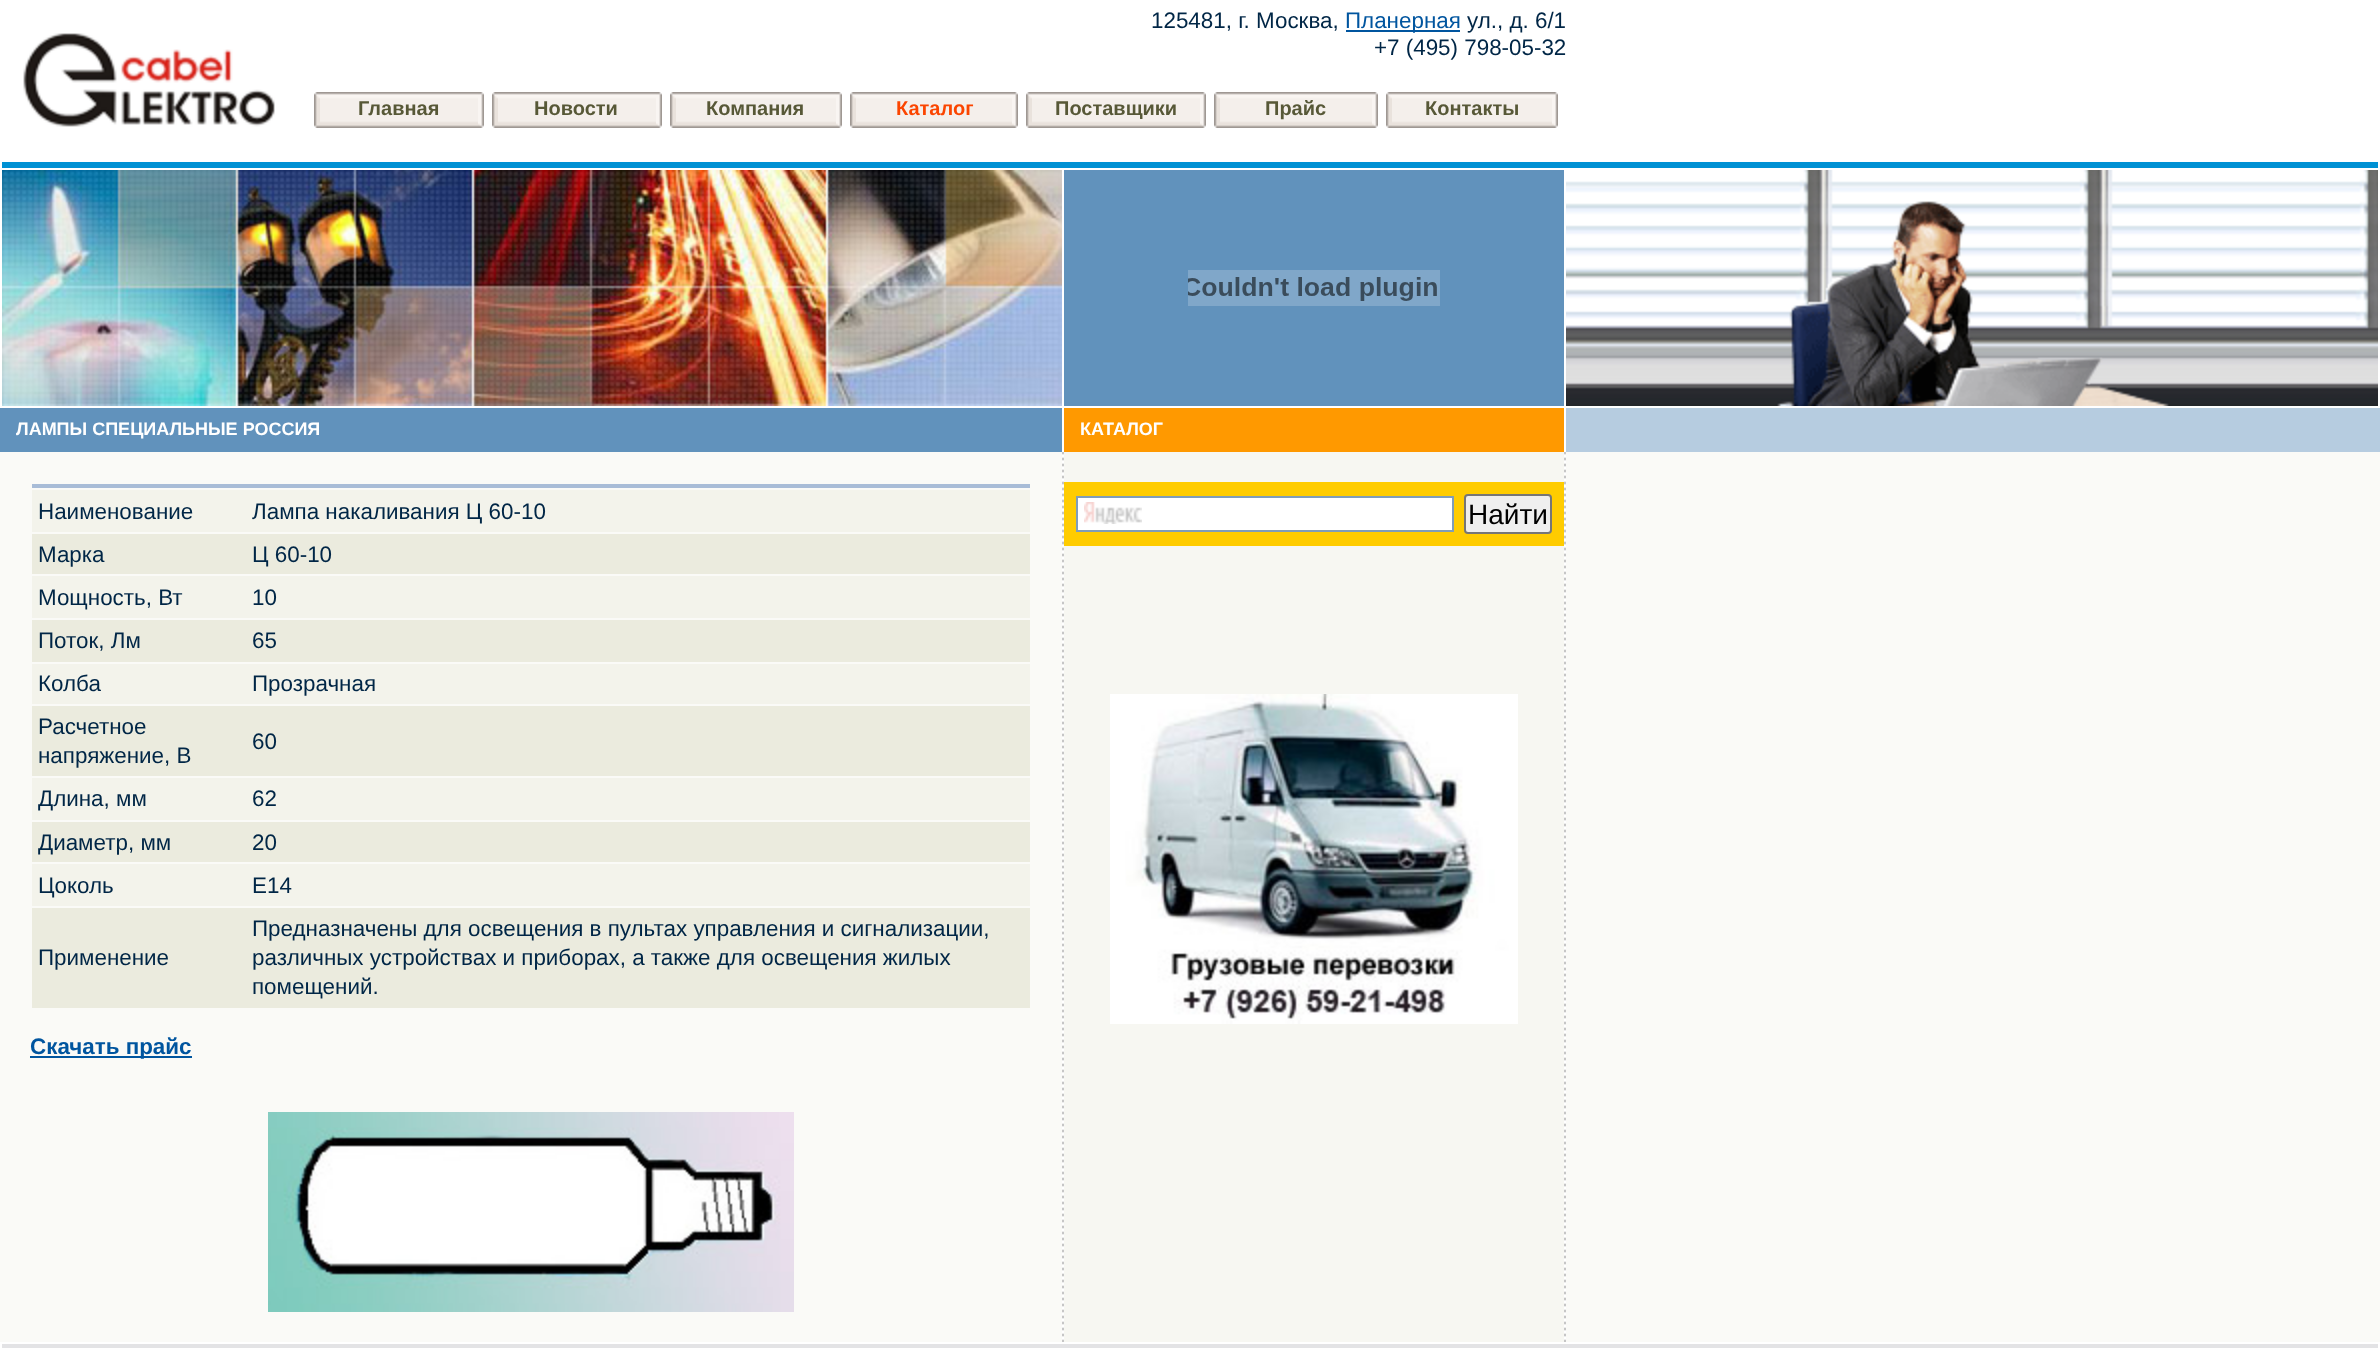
<!DOCTYPE html>
<meta charset="utf-8">
<style>body { margin: 0 } canvas { display: block }</style>
<canvas id="canvas" width="2380" height="1363"></canvas>
<img id="img1" src="images/1.png" hidden>
<img id="img2" src="images/2.png" hidden>
<img id="img3" src="images/3.png" hidden>
<img id="img4" src="images/4.png" hidden>
<img id="img5" src="images/5.png" hidden>
<img id="img6" src="images/6.png" hidden>
<img id="img7" src="images/7.png" hidden>
<img id="img8" src="images/8.png" hidden>
<img id="img9" src="images/9.png" hidden>
<img id="img10" src="images/10.png" hidden>
<img id="img11" src="images/11.png" hidden>
<img id="img12" src="images/12.png" hidden>
<img id="img13" src="images/13.png" hidden>
<img id="img14" src="images/14.png" hidden>
<img id="img15" src="images/15.png" hidden>
<img id="img16" src="images/16.png" hidden>
<script>
window.onload = function () {
    const canvas = document.getElementById('canvas');
    const context = canvas.getContext('2d');
    context.miterLimit = 4;
    context.fontKerning = 'normal';

    context.fillStyle = 'rgb(255, 255, 255)';
    context.fillRect(0, 0, 2380, 1363);
    context.drawImage(document.getElementById('img1'), 23, 33, 252, 94);
    context.fillStyle = 'rgb(0, 85, 159)';
    context.fillRect(1346, 30, 114, 2);
    context.drawImage(document.getElementById('img2'), 314, 92, 6, 36);
    context.drawImage(document.getElementById('img3'), 320, 92, 158, 36);
    context.drawImage(document.getElementById('img4'), 478, 92, 6, 36);
    context.drawImage(document.getElementById('img2'), 492, 92, 6, 36);
    context.drawImage(document.getElementById('img3'), 498, 92, 158, 36);
    context.drawImage(document.getElementById('img4'), 656, 92, 6, 36);
    context.drawImage(document.getElementById('img2'), 670, 92, 6, 36);
    context.drawImage(document.getElementById('img5'), 676, 92, 160, 36);
    context.drawImage(document.getElementById('img4'), 836, 92, 6, 36);
    context.drawImage(document.getElementById('img2'), 850, 92, 6, 36);
    context.drawImage(document.getElementById('img6'), 856, 92, 156, 36);
    context.drawImage(document.getElementById('img4'), 1012, 92, 6, 36);
    context.drawImage(document.getElementById('img2'), 1026, 92, 6, 36);
    context.drawImage(document.getElementById('img7'), 1032, 92, 168, 36);
    context.drawImage(document.getElementById('img4'), 1200, 92, 6, 36);
    context.drawImage(document.getElementById('img2'), 1214, 92, 6, 36);
    context.drawImage(document.getElementById('img8'), 1220, 92, 152, 36);
    context.drawImage(document.getElementById('img4'), 1372, 92, 6, 36);
    context.drawImage(document.getElementById('img2'), 1386, 92, 6, 36);
    context.drawImage(document.getElementById('img5'), 1392, 92, 160, 36);
    context.drawImage(document.getElementById('img4'), 1552, 92, 6, 36);
    context.fillStyle = 'rgb(0, 145, 212)';
    context.fillRect(2, 162, 2376, 6);
    context.drawImage(document.getElementById('img9'), 2, 170, 1060, 236);
    context.fillStyle = 'rgb(97, 146, 188)';
    context.fillRect(1064, 170, 500, 236);
    context.drawImage(document.getElementById('img10'), 1188, 270, 252, 36);
    context.drawImage(document.getElementById('img11'), 1566, 170, 812, 236);
    context.drawImage(document.getElementById('img12'), 1777, 201, 392, 205);
    context.fillRect(0, 408, 1062, 44);
    context.fillStyle = 'rgb(255, 153, 0)';
    context.fillRect(1064, 408, 500, 44);
    context.fillStyle = 'rgb(182, 204, 224)';
    context.fillRect(1566, 408, 814, 44);
    context.fillStyle = 'rgb(250, 250, 247)';
    context.fillRect(0, 452, 1062, 890);
    context.fillStyle = 'rgb(168, 188, 215)';
    context.fillRect(32, 484, 998, 4);
    context.fillStyle = 'rgb(243, 243, 235)';
    context.fillRect(32, 490, 998, 42);
    context.fillStyle = 'rgb(235, 235, 222)';
    context.fillRect(32, 534, 998, 40);
    context.fillStyle = 'rgb(243, 243, 235)';
    context.fillRect(32, 576, 998, 42);
    context.fillStyle = 'rgb(235, 235, 222)';
    context.fillRect(32, 620, 998, 42);
    context.fillStyle = 'rgb(243, 243, 235)';
    context.fillRect(32, 664, 998, 40);
    context.fillStyle = 'rgb(235, 235, 222)';
    context.fillRect(32, 706, 998, 70);
    context.fillStyle = 'rgb(243, 243, 235)';
    context.fillRect(32, 778, 998, 42);
    context.fillStyle = 'rgb(235, 235, 222)';
    context.fillRect(32, 822, 998, 40);
    context.fillStyle = 'rgb(243, 243, 235)';
    context.fillRect(32, 864, 998, 42);
    context.fillStyle = 'rgb(235, 235, 222)';
    context.fillRect(32, 908, 998, 100);
    context.fillStyle = 'rgb(0, 85, 159)';
    context.fillRect(30, 1056, 162, 2);
    context.drawImage(document.getElementById('img13'), 268, 1112, 526, 200);
    context.drawImage(document.getElementById('img14'), 1062, 452, 2, 890);
    context.fillStyle = 'rgb(247, 247, 242)';
    context.fillRect(1064, 452, 500, 890);
    context.fillStyle = 'rgb(255, 204, 0)';
    context.fillRect(1064, 482, 500, 64);
    context.fillStyle = 'rgb(255, 255, 255)';
    context.fillRect(1078, 498, 374, 32);
    context.drawImage(document.getElementById('img15'), 1084, 502, 58, 22);
    context.strokeStyle = 'rgb(127, 157, 185)';
    context.lineWidth = 2;
    context.strokeRect(1077, 497, 376, 34);
    context.fillStyle = 'rgb(239, 239, 239)';
    context.beginPath();
    context.roundRect(1465, 495, 86, 38, 3);
    context.fill();
    context.strokeStyle = 'rgb(118, 118, 118)';
    context.stroke();
    context.drawImage(document.getElementById('img16'), 1110, 694, 408, 330);
    context.drawImage(document.getElementById('img14'), 1564, 452, 2, 890);
    context.fillStyle = 'rgb(250, 250, 247)';
    context.fillRect(1566, 452, 814, 890);
    context.fillStyle = 'rgb(227, 227, 229)';
    context.fillRect(2, 1344, 2376, 4);
    context.font = '22.4px Liberation Sans';
    context.fillStyle = 'rgb(0, 38, 70)';
    context.fillText('125481, г. Москва,', 1151, 28);
    context.fillStyle = 'rgb(0, 85, 159)';
    context.fillText('Планерная', 1345, 28);
    context.fillStyle = 'rgb(0, 38, 70)';
    context.fillText('ул., д. 6/1', 1467, 28);
    context.fillText('+7 (495) 798-05-32', 1374, 55);
    context.font = 'bold 20px Liberation Sans';
    context.fillStyle = 'rgb(87, 88, 55)';
    context.fillText('Главная', 358, 115);
    context.fillText('Новости', 534, 115);
    context.fillText('Компания', 706, 115);
    context.fillStyle = 'rgb(251, 69, 0)';
    context.fillText('Каталог', 896, 115);
    context.fillStyle = 'rgb(87, 88, 55)';
    context.fillText('Поставщики', 1055, 115);
    context.fillText('Прайс', 1265, 115);
    context.fillText('Контакты', 1425, 115);
    context.font = 'bold 18px Liberation Sans';
    context.fillStyle = 'rgb(255, 255, 255)';
    context.fillText('ЛАМПЫ СПЕЦИАЛЬНЫЕ РОССИЯ', 16, 435);
    context.fillText('КАТАЛОГ', 1080, 435);
    context.font = '22.4px Liberation Sans';
    context.fillStyle = 'rgb(0, 38, 70)';
    context.fillText('Наименование', 38, 519);
    context.fillText('Лампа накаливания Ц 60-10', 252, 519);
    context.fillText('Марка', 38, 562);
    context.fillText('Ц 60-10', 252, 562);
    context.fillText('Мощность, Вт', 38, 605);
    context.fillText('10', 252, 605);
    context.fillText('Поток, Лм', 38, 648);
    context.fillText('65', 252, 648);
    context.fillText('Колба', 38, 691);
    context.fillText('Прозрачная', 252, 691);
    context.fillText('Расчетное', 38, 734);
    context.fillText('напряжение, В', 38, 763);
    context.fillText('60', 252, 749);
    context.fillText('Длина, мм', 38, 806);
    context.fillText('62', 252, 806);
    context.fillText('Диаметр, мм', 38, 850);
    context.fillText('20', 252, 850);
    context.fillText('Цоколь', 38, 893);
    context.fillText('Е14', 252, 893);
    context.fillText('Применениe', 38, 965);
    context.fillText('Предназначены для освещения в пультах управления и сигнализации,', 252, 936);
    context.fillText('различных устройствах и приборах, а также для освещения жилых', 252, 965);
    context.fillText('помещений.', 252, 994);
    context.font = 'bold 22.4px Liberation Sans';
    context.fillStyle = 'rgb(0, 85, 159)';
    context.fillText('Скачать прайс', 30, 1054);
    context.font = '28px Liberation Sans';
    context.fillStyle = 'rgb(0, 0, 0)';
    context.fillText('Найти', 1468, 524);
};
</script>
